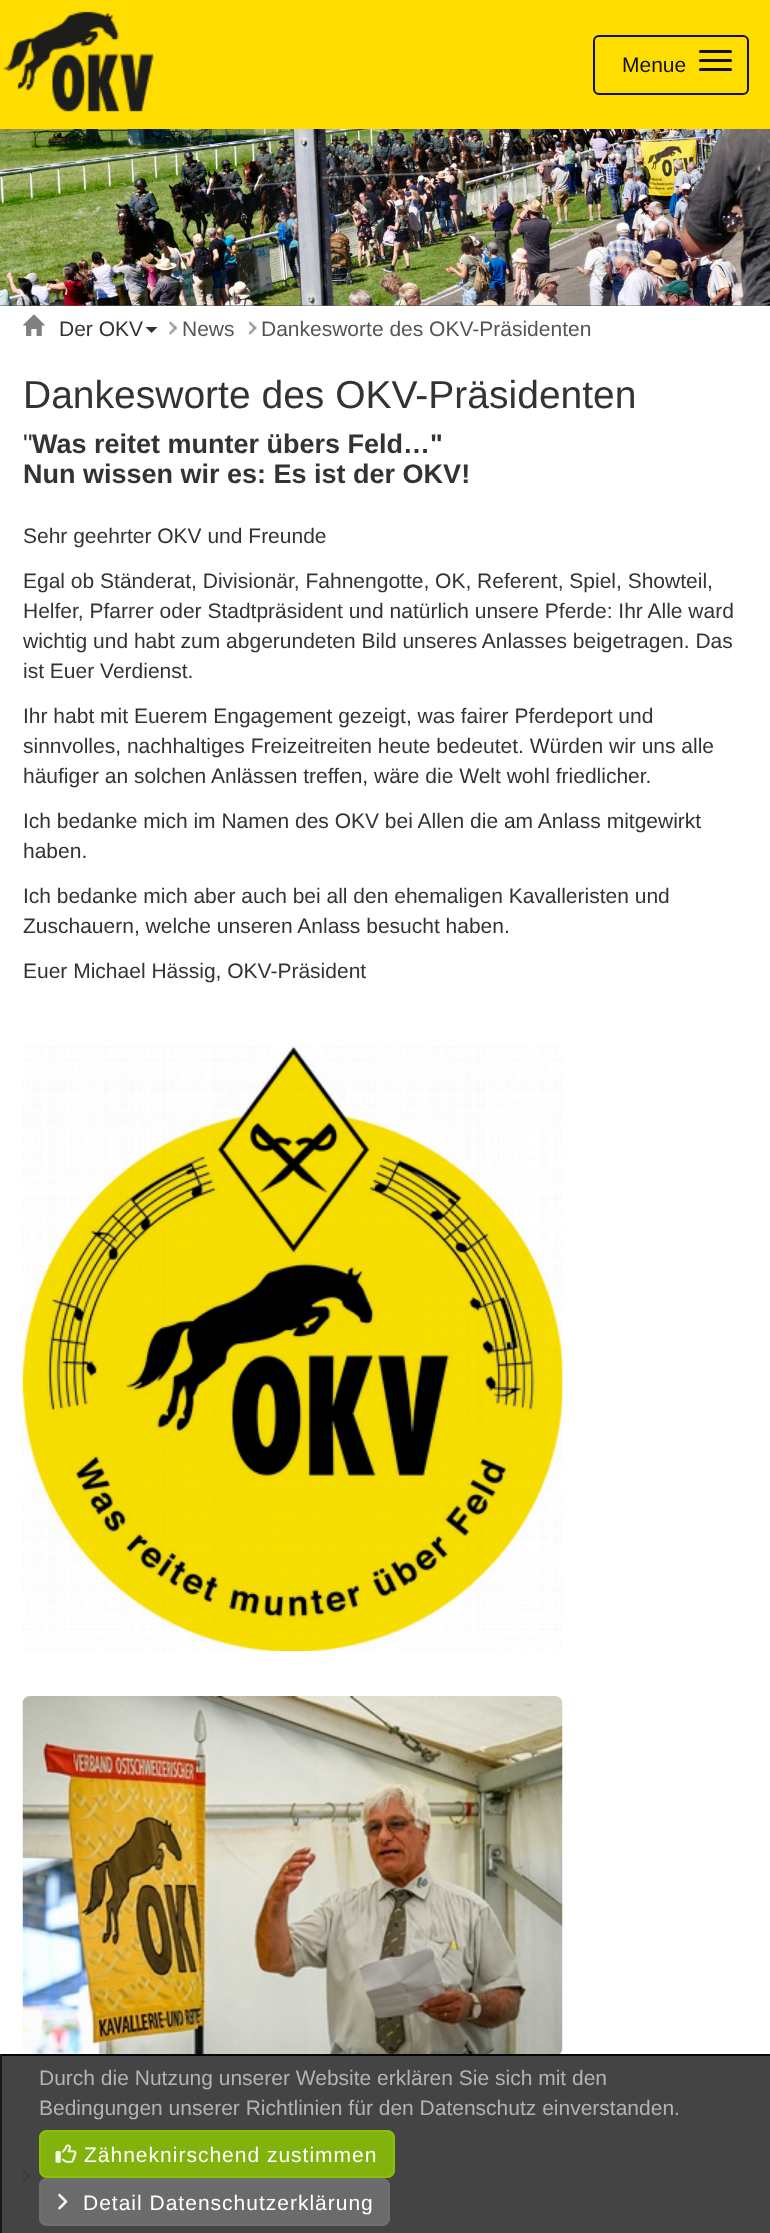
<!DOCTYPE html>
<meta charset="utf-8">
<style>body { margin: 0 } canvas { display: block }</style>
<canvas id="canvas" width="770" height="2233"></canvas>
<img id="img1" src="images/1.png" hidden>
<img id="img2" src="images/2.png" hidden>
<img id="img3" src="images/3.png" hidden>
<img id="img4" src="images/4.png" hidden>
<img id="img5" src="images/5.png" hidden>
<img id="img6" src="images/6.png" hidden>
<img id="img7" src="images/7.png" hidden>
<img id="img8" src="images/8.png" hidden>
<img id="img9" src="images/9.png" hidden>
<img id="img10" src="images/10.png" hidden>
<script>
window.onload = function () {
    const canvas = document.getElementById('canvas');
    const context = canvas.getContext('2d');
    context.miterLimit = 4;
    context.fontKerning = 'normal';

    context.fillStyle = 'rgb(255, 255, 255)';
    context.fillRect(0, 0, 770, 2233);
    context.drawImage(document.getElementById('img1'), 0, 305, 770, 1);
    context.fillStyle = 'rgb(255, 221, 0)';
    context.fillRect(0, 0, 770, 129);
    context.drawImage(document.getElementById('img2'), 3, 11, 151, 101);
    context.beginPath();
    context.roundRect(594, 36, 154, 58, 5);
    context.strokeStyle = 'rgb(16, 16, 16)';
    context.lineWidth = 2;
    context.stroke();
    context.fillStyle = 'rgb(16, 16, 16)';
    context.beginPath();
    context.roundRect(699, 50, 33, 3, 1.5);
    context.fill();
    context.beginPath();
    context.roundRect(699, 59, 33, 3, 1.5);
    context.fill();
    context.beginPath();
    context.roundRect(699, 68, 33, 3, 1.5);
    context.fill();
    context.drawImage(document.getElementById('img3'), 0, 129, 770, 177);
    context.drawImage(document.getElementById('img4'), 22, 314, 23, 22);
    context.fillStyle = 'rgb(51, 51, 51)';
    context.beginPath();
    context.moveTo(145.5, 327);
    context.lineTo(157.5, 327);
    context.lineTo(151.5, 333);
    context.closePath();
    context.fill();
    context.drawImage(document.getElementById('img5'), 169, 321, 8, 14);
    context.drawImage(document.getElementById('img6'), 249, 321, 8, 14);
    context.drawImage(document.getElementById('img7'), 22, 1045, 541, 606);
    context.drawImage(document.getElementById('img8'), 22, 1696, 541, 360);
    context.drawImage(document.getElementById('img5'), 22, 2169, 8, 14);
    context.fillStyle = 'rgba(48, 48, 48, 0.9)';
    context.fillRect(2, 2054, 768, 179);
    context.fillStyle = 'rgba(0, 0, 0, 0.9)';
    context.fillRect(0, 2054, 770, 2);
    context.fillStyle = 'rgb(26, 26, 26)';
    context.fillRect(0, 2054, 2, 179);
    context.fillStyle = 'rgba(138, 192, 7, 0.9)';
    context.beginPath();
    context.roundRect(39, 2130, 356, 48, 8);
    context.fill();
    context.beginPath();
    context.roundRect(40, 2131, 354, 46, 7);
    context.strokeStyle = 'rgba(138, 192, 7, 0.9)';
    context.stroke();
    context.drawImage(document.getElementById('img9'), 55, 2144, 22, 19);
    context.fillStyle = 'rgba(112, 112, 112, 0.9)';
    context.beginPath();
    context.roundRect(39, 2178, 351, 48, 8);
    context.fill();
    context.beginPath();
    context.roundRect(40, 2179, 349, 46, 7);
    context.strokeStyle = 'rgba(112, 112, 112, 0.9)';
    context.stroke();
    context.drawImage(document.getElementById('img10'), 58, 2193, 10, 17);
    context.font = '21px Liberation Sans';
    context.fillStyle = 'rgb(16, 16, 16)';
    context.fillText('Menue', 622, 72);
    context.fillStyle = 'rgb(51, 51, 51)';
    context.fillText('Der OKV', 59, 336);
    context.fillStyle = 'rgb(85, 85, 85)';
    context.fillText('News', 182, 336);
    context.fillText('Dankesworte des OKV-Präsidenten', 261, 336);
    context.font = '39px Liberation Sans';
    context.fillStyle = 'rgb(51, 51, 51)';
    context.fillText('Dankesworte des OKV-Präsidenten', 23, 408);
    context.font = '27px Liberation Sans';
    context.fillText('"', 23, 453);
    context.font = 'bold 27px Liberation Sans';
    context.fillText('Was reitet munter übers Feld…"', 32, 453);
    context.fillText('Nun wissen wir es: Es ist der OKV!', 23, 483);
    context.font = '21px Liberation Sans';
    context.fillText('Sehr geehrter OKV und Freunde', 23, 543);
    context.fillText('Egal ob Ständerat, Divisionär, Fahnengotte, OK, Referent, Spiel, Showteil,', 23, 588);
    context.fillText('Helfer, Pfarrer oder Stadtpräsident und natürlich unsere Pferde: Ihr Alle ward', 23, 618);
    context.fillText('wichtig und habt zum abgerundeten Bild unseres Anlasses beigetragen. Das', 23, 648);
    context.fillText('ist Euer Verdienst.', 23, 678);
    context.fillText('Ihr habt mit Euerem Engagement gezeigt, was fairer Pferdeport und', 23, 723);
    context.fillText('sinnvolles, nachhaltiges Freizeitreiten heute bedeutet. Würden wir uns alle', 23, 753);
    context.fillText('häufiger an solchen Anlässen treffen, wäre die Welt wohl friedlicher.', 23, 783);
    context.fillText('Ich bedanke mich im Namen des OKV bei Allen die am Anlass mitgewirkt', 23, 828);
    context.fillText('haben.', 23, 858);
    context.fillText('Ich bedanke mich aber auch bei all den ehemaligen Kavalleristen und', 23, 903);
    context.fillText('Zuschauern, welche unseren Anlass besucht haben.', 23, 933);
    context.fillText('Euer Michael Hässig, OKV-Präsident', 23, 978);
    context.fillStyle = 'rgb(179, 179, 179)';
    context.fillText('Durch die Nutzung unserer Website erklären Sie sich mit den', 39, 2085);
    context.fillText('Bedingungen unserer Richtlinien für den Datenschutz einverstanden.', 39, 2115);
    context.letterSpacing = '1px';
    context.fillStyle = 'rgb(255, 255, 255)';
    context.fillText('Zähneknirschend zustimmen', 84, 2162);
    context.fillText('Detail Datenschutzerklärung', 83, 2210);
};
</script>
